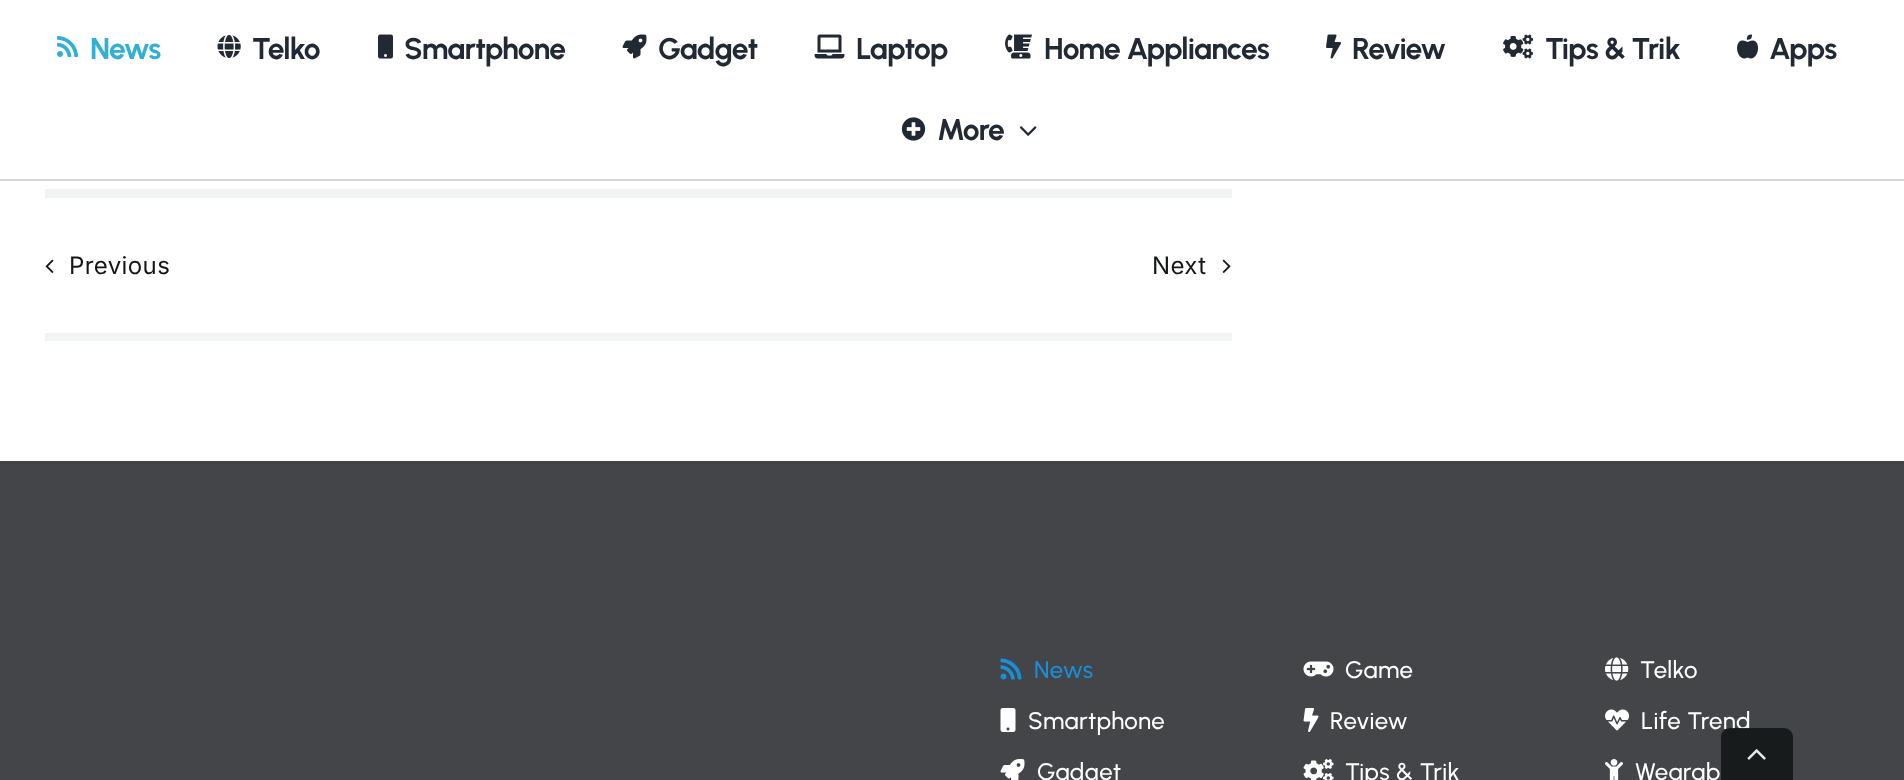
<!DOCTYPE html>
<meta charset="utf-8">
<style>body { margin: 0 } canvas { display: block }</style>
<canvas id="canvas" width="1904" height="780"></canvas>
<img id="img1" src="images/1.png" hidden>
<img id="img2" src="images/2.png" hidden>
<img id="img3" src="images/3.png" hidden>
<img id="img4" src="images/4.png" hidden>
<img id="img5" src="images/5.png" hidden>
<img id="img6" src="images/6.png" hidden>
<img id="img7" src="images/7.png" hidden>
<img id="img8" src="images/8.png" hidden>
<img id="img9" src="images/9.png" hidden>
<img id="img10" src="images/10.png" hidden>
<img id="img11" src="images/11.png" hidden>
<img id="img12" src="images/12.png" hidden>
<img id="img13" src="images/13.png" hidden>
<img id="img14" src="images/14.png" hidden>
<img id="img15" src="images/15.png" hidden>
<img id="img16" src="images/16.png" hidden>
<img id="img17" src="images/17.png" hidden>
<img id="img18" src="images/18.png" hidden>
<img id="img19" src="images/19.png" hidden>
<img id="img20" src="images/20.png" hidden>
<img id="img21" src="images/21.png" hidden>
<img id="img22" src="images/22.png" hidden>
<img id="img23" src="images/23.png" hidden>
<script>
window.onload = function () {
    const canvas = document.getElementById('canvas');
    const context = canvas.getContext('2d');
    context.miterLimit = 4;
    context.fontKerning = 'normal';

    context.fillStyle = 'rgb(255, 255, 255)';
    context.fillRect(0, 0, 1904, 780);
    context.fillStyle = 'rgb(217, 217, 217)';
    context.fillRect(0, 179, 1904, 2);
    context.drawImage(document.getElementById('img1'), 57, 36, 21, 21);
    context.drawImage(document.getElementById('img2'), 217, 34, 24, 25);
    context.drawImage(document.getElementById('img3'), 378, 34, 15, 25);
    context.drawImage(document.getElementById('img4'), 622, 34, 25, 25);
    context.drawImage(document.getElementById('img5'), 814, 34, 31, 25);
    context.drawImage(document.getElementById('img6'), 1005, 34, 27, 25);
    context.drawImage(document.getElementById('img7'), 1326, 34, 15, 25);
    context.drawImage(document.getElementById('img8'), 1503, 34, 30, 25);
    context.drawImage(document.getElementById('img9'), 1737, 34, 22, 25);
    context.drawImage(document.getElementById('img10'), 901, 117, 25, 24);
    context.drawImage(document.getElementById('img11'), 1019, 126, 18, 10);
    context.fillStyle = 'rgb(242, 243, 245)';
    context.fillRect(45, 189, 1187, 9);
    context.fillRect(45, 333, 1187, 8);
    context.drawImage(document.getElementById('img12'), 45, 259, 9, 14);
    context.drawImage(document.getElementById('img13'), 1222, 259, 9, 14);
    context.fillStyle = 'rgb(67, 69, 73)';
    context.fillRect(0, 461, 1904, 319);
    context.drawImage(document.getElementById('img14'), 1000, 658, 22, 22);
    context.drawImage(document.getElementById('img15'), 1000, 708, 16, 24);
    context.drawImage(document.getElementById('img16'), 1000, 759, 25, 21);
    context.drawImage(document.getElementById('img17'), 1303, 661, 31, 16);
    context.drawImage(document.getElementById('img18'), 1303, 708, 16, 24);
    context.drawImage(document.getElementById('img19'), 1303, 759, 31, 21);
    context.drawImage(document.getElementById('img20'), 1605, 657, 24, 24);
    context.drawImage(document.getElementById('img21'), 1605, 709, 25, 22);
    context.drawImage(document.getElementById('img22'), 1605, 759, 18, 21);
    context.letterSpacing = '-0.75px';
    context.font = 'bold 30px Urbanist';
    context.fillStyle = 'rgb(48, 176, 215)';
    context.fillText('News', 90, 59);
    context.fillStyle = 'rgb(33, 41, 52)';
    context.fillText('Telko', 252, 59);
    context.fillText('Smartphone', 404, 59);
    context.fillText('Gadget', 658, 59);
    context.fillText('Laptop', 856, 59);
    context.fillText('Home Appliances', 1044, 59);
    context.fillText('Review', 1352, 59);
    context.fillText('Tips & Trik', 1545, 59);
    context.fillText('Apps', 1769, 59);
    context.fillText('More', 937, 140);
    context.letterSpacing = '0.4px';
    context.font = '24px Inter';
    context.fillStyle = 'rgb(20, 22, 23)';
    context.fillText('Previous', 69, 274);
    context.fillText('Next', 1152, 274);
    context.font = '500 24px Urbanist';
    context.fillStyle = 'rgb(25, 143, 217)';
    context.fillText('News', 1034, 678);
    context.fillStyle = 'rgb(255, 255, 255)';
    context.fillText('Smartphone', 1028, 729);
    context.fillText('Gadget', 1037, 780);
    context.fillText('Game', 1345, 678);
    context.fillText('Review', 1330, 729);
    context.fillText('Tips & Trik', 1345, 780);
    context.fillText('Telko', 1640, 678);
    context.fillText('Life Trend', 1641, 729);
    context.fillText('Wearab', 1635, 780);
    context.fillStyle = 'rgba(20, 22, 23, 0.9)';
    context.beginPath();
    context.roundRect(1721, 728, 72, 52, [9, 9, 0, 0]);
    context.fill();
    context.drawImage(document.getElementById('img23'), 1747, 749, 19, 11);
};
</script>
